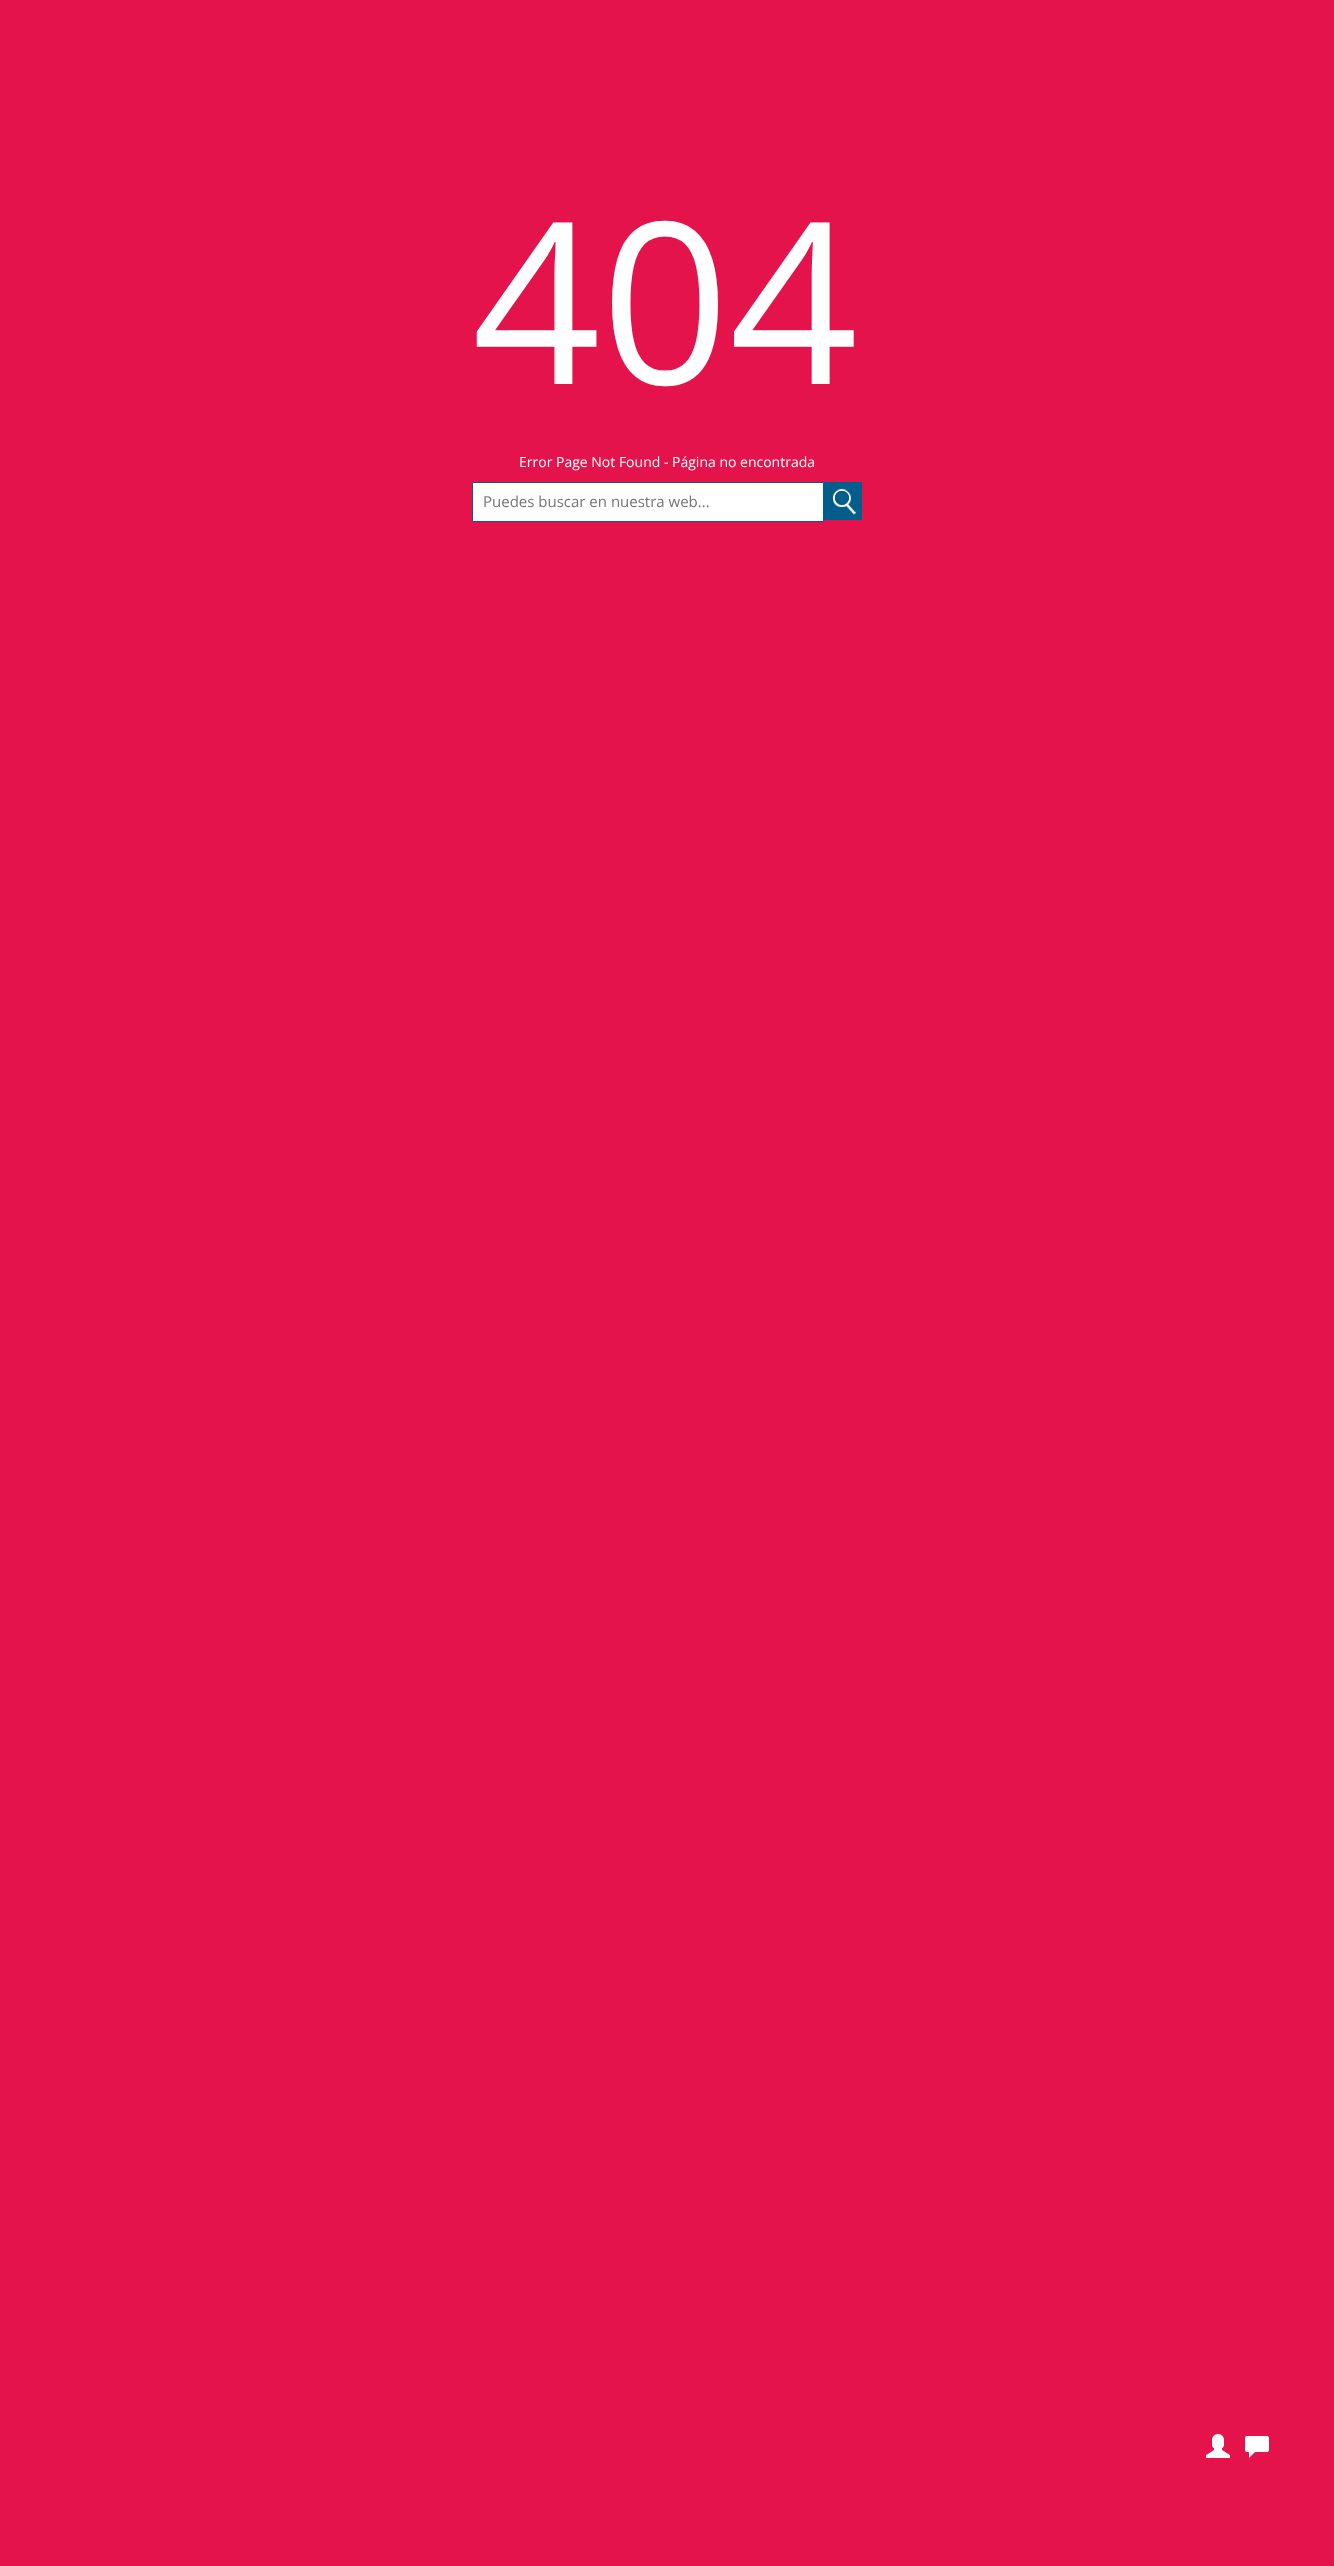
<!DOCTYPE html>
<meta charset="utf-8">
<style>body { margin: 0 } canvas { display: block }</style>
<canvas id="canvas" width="1334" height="2566"></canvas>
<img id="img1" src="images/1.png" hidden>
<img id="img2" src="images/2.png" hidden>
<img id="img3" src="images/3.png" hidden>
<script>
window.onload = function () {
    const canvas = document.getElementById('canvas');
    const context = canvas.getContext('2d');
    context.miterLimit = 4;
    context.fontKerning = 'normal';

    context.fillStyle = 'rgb(229, 19, 75)';
    context.fillRect(0, 0, 1334, 2566);
    context.fillStyle = 'rgb(255, 255, 255)';
    context.beginPath();
    context.rect(472.5, 482.5, 351, 39);
    context.fill();
    context.strokeStyle = 'rgb(0, 93, 140)';
    context.stroke();
    context.fillStyle = 'rgb(0, 93, 140)';
    context.fillRect(824, 482, 38, 38);
    context.drawImage(document.getElementById('img1'), 833, 488, 23, 27);
    context.drawImage(document.getElementById('img2'), 1206, 2434, 24, 24);
    context.drawImage(document.getElementById('img3'), 1245, 2436, 24, 22);
    context.font = '225px Open Sans';
    context.fillStyle = 'rgb(255, 255, 255)';
    context.fillText('404', 472, 384);
    context.font = '14px Open Sans';
    context.fillText('Error Page Not Found - Página no encontrada', 519, 467);
    context.font = '15px Open Sans';
    context.fillStyle = 'rgb(117, 117, 117)';
    context.fillText('Puedes buscar en nuestra web...', 483, 507);
};
</script>
